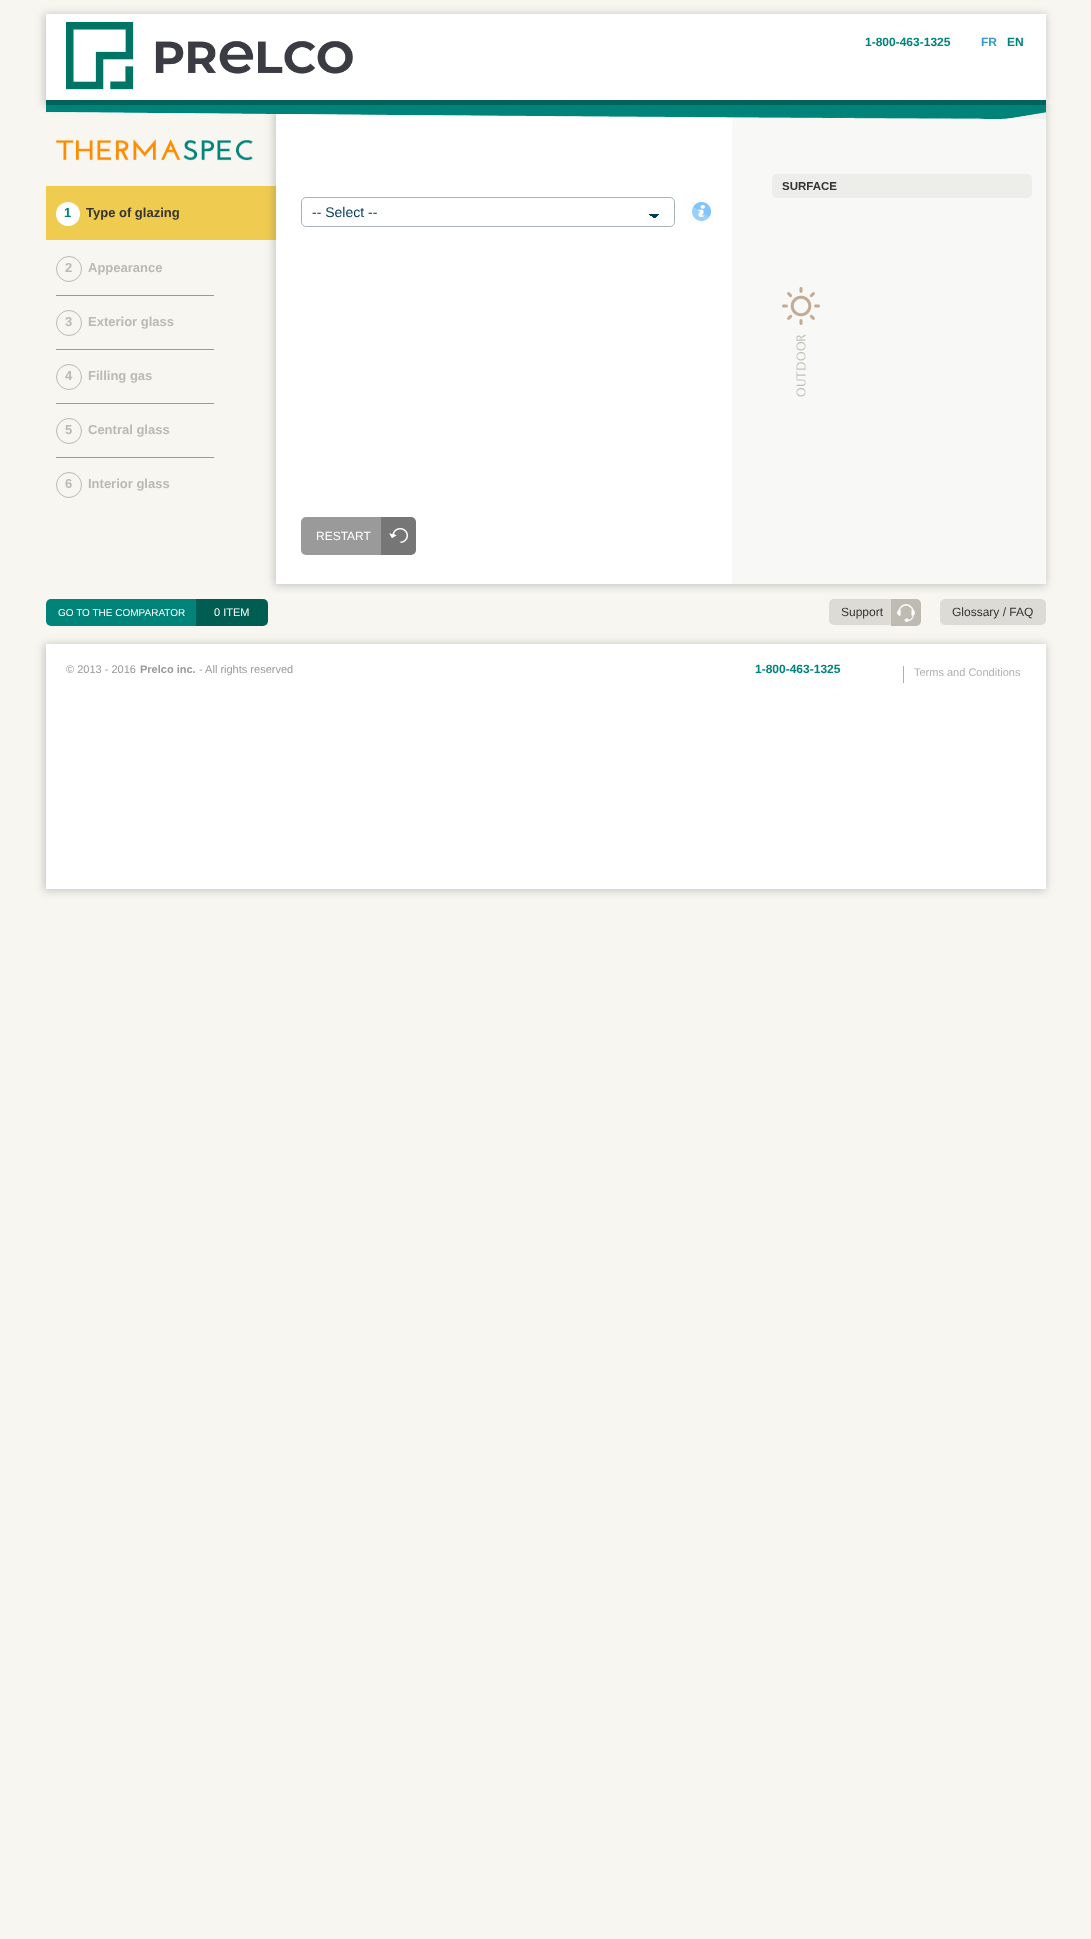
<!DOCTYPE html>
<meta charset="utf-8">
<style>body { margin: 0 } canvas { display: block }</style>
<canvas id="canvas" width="1091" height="1939"></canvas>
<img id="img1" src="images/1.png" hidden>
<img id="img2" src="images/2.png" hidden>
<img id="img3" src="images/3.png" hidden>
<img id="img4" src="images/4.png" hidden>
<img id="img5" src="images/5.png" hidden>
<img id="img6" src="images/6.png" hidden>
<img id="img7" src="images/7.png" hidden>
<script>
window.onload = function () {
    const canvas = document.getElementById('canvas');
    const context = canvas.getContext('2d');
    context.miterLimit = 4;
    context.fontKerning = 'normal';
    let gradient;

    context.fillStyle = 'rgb(247, 246, 241)';
    context.fillRect(0, 0, 1091, 1939);
    context.fillStyle = 'rgba(91, 92, 91, 0.3)';
    context.filter = 'blur(4px)';
    context.beginPath();
    context.rect(44, 14, 1002, 92);
    context.fill();
    context.filter = 'none';
    context.fillStyle = 'rgb(255, 255, 255)';
    context.fillRect(46, 14, 1000, 86);
    context.drawImage(document.getElementById('img1'), 66, 22, 287, 68);
    context.fillStyle = 'rgb(239, 203, 80)';
    context.fillRect(46, 186, 230, 54);
    context.save();
    context.beginPath();
    context.rect(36, 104, 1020, 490);
    context.clip();
    context.fillStyle = 'rgba(91, 92, 91, 0.3)';
    context.filter = 'blur(4px)';
    context.beginPath();
    context.rect(274, 104, 772, 482);
    context.fill();
    context.filter = 'none';
    context.restore();
    context.fillStyle = 'rgb(255, 255, 255)';
    context.fillRect(276, 114, 456, 470);
    context.fillStyle = 'rgb(248, 248, 247)';
    context.fillRect(732, 112, 314, 472);
    context.drawImage(document.getElementById('img2'), 46, 100, 1000, 19);
    context.drawImage(document.getElementById('img3'), 56, 139, 197, 22);
    context.fillStyle = 'rgb(255, 255, 255)';
    context.beginPath();
    context.arc(68, 214, 12, 0, 2 * Math.PI);
    context.fill();
    context.beginPath();
    context.arc(69, 269, 12.5, 0, 2 * Math.PI);
    context.strokeStyle = 'rgb(186, 185, 180)';
    context.stroke();
    context.fillStyle = 'rgb(154, 154, 154)';
    context.fillRect(56, 295, 158, 1);
    context.beginPath();
    context.arc(69, 323, 12.5, 0, 2 * Math.PI);
    context.stroke();
    context.fillRect(56, 349, 158, 1);
    context.beginPath();
    context.arc(69, 377, 12.5, 0, 2 * Math.PI);
    context.stroke();
    context.fillRect(56, 403, 158, 1);
    context.beginPath();
    context.arc(69, 431, 12.5, 0, 2 * Math.PI);
    context.stroke();
    context.fillRect(56, 457, 158, 1);
    context.beginPath();
    context.arc(69, 485, 12.5, 0, 2 * Math.PI);
    context.stroke();
    context.fillStyle = 'rgb(237, 237, 234)';
    context.beginPath();
    context.roundRect(772, 174, 260, 24, 5);
    context.fill();
    context.drawImage(document.getElementById('img4'), 782, 287, 38, 110);
    gradient = context.createLinearGradient(654, 214, 659, 219);
    gradient.addColorStop(0.5, 'rgb(0, 59, 90)');
    gradient.addColorStop(0.5, 'rgb(255, 255, 255)');
    context.fillStyle = gradient;
    context.fillRect(654, 214, 5, 4);
    gradient = context.createLinearGradient(649, 219, 654, 214);
    gradient.addColorStop(0.5, 'rgb(255, 255, 255)');
    gradient.addColorStop(0.5, 'rgb(0, 59, 90)');
    context.fillStyle = gradient;
    context.fillRect(649, 214, 5, 4);
    context.beginPath();
    context.roundRect(301.5, 197.5, 373, 29, 4.5);
    context.strokeStyle = 'rgb(170, 178, 189)';
    context.stroke();
    context.drawImage(document.getElementById('img5'), 692, 202, 19, 19);
    context.fillStyle = 'rgb(154, 154, 154)';
    context.beginPath();
    context.roundRect(301, 517, 84, 38, [5, 0, 0, 5]);
    context.fill();
    context.fillStyle = 'rgb(118, 118, 118)';
    context.beginPath();
    context.roundRect(381, 517, 35, 38, [0, 5, 5, 0]);
    context.fill();
    context.drawImage(document.getElementById('img6'), 389, 528, 19, 15);
    context.fillStyle = 'rgb(0, 131, 120)';
    context.beginPath();
    context.roundRect(46, 599, 151, 27, [5, 0, 0, 5]);
    context.fill();
    context.fillStyle = 'rgb(0, 93, 82)';
    context.beginPath();
    context.roundRect(196, 599, 72, 27, [0, 5, 5, 0]);
    context.fill();
    context.fillStyle = 'rgb(220, 219, 213)';
    context.beginPath();
    context.roundRect(829, 599, 66, 26, [5, 0, 0, 5]);
    context.fill();
    context.fillStyle = 'rgb(190, 188, 178)';
    context.beginPath();
    context.roundRect(891, 599, 30, 27, [0, 5, 5, 0]);
    context.fill();
    context.drawImage(document.getElementById('img7'), 897, 604, 18, 18);
    context.fillStyle = 'rgb(220, 219, 213)';
    context.beginPath();
    context.roundRect(940, 599, 106, 26, 5);
    context.fill();
    context.fillStyle = 'rgba(91, 92, 91, 0.3)';
    context.filter = 'blur(4px)';
    context.beginPath();
    context.rect(44, 644, 1002, 247);
    context.fill();
    context.filter = 'none';
    context.fillStyle = 'rgb(255, 255, 255)';
    context.fillRect(46, 644, 1000, 245);
    context.fillStyle = 'rgb(175, 175, 175)';
    context.fillRect(903, 666, 1, 17);
    context.font = 'bold 12px Liberation Sans';
    context.fillStyle = 'rgb(0, 131, 121)';
    context.fillText('1-800-463-1325', 865, 46);
    context.fillStyle = 'rgb(51, 153, 204)';
    context.fillText('FR', 981, 46);
    context.fillStyle = 'rgb(0, 131, 121)';
    context.fillText('EN', 1007, 46);
    context.font = 'bold 13px Liberation Sans';
    context.fillText('1', 64, 217);
    context.fillStyle = 'rgb(51, 51, 51)';
    context.fillText('Type of glazing', 86, 217);
    context.fillStyle = 'rgb(186, 185, 180)';
    context.fillText('2', 65, 272);
    context.fillText('Appearance', 88, 272);
    context.fillText('3', 65, 326);
    context.fillText('Exterior glass', 88, 326);
    context.fillText('4', 65, 380);
    context.fillText('Filling gas', 88, 380);
    context.fillText('5', 65, 434);
    context.fillText('Central glass', 88, 434);
    context.fillText('6', 65, 488);
    context.fillText('Interior glass', 88, 488);
    context.font = 'bold 11.5px Liberation Sans';
    context.fillStyle = 'rgb(51, 51, 51)';
    context.fillText('SURFACE', 782, 190);
    context.font = '14px Liberation Sans';
    context.fillStyle = 'rgb(0, 59, 90)';
    context.fillText('-- Select --', 312, 217);
    context.font = '12px Liberation Sans';
    context.fillStyle = 'rgb(255, 255, 255)';
    context.fillText('RESTART', 316, 540);
    context.font = '10px Liberation Sans';
    context.fillText('GO TO THE COMPARATOR', 58, 616);
    context.font = '11px Liberation Sans';
    context.fillText('0 ITEM', 214, 616);
    context.font = '12px Liberation Sans';
    context.fillStyle = 'rgb(51, 51, 51)';
    context.fillText('Support', 841, 616);
    context.fillText('Glossary / FAQ', 952, 616);
    context.font = '11px Liberation Sans';
    context.fillStyle = 'rgb(153, 153, 153)';
    context.fillText('© 2013 - 2016', 66, 673);
    context.font = 'bold 11px Liberation Sans';
    context.fillText('Prelco inc.', 140, 673);
    context.font = '11px Liberation Sans';
    context.fillText('- All rights reserved', 199, 673);
    context.font = 'bold 12px Liberation Sans';
    context.fillStyle = 'rgb(0, 131, 121)';
    context.fillText('1-800-463-1325', 755, 673);
    context.font = '11px Liberation Sans';
    context.fillStyle = 'rgb(175, 175, 175)';
    context.fillText('Terms and Conditions', 914, 676);
};
</script>
